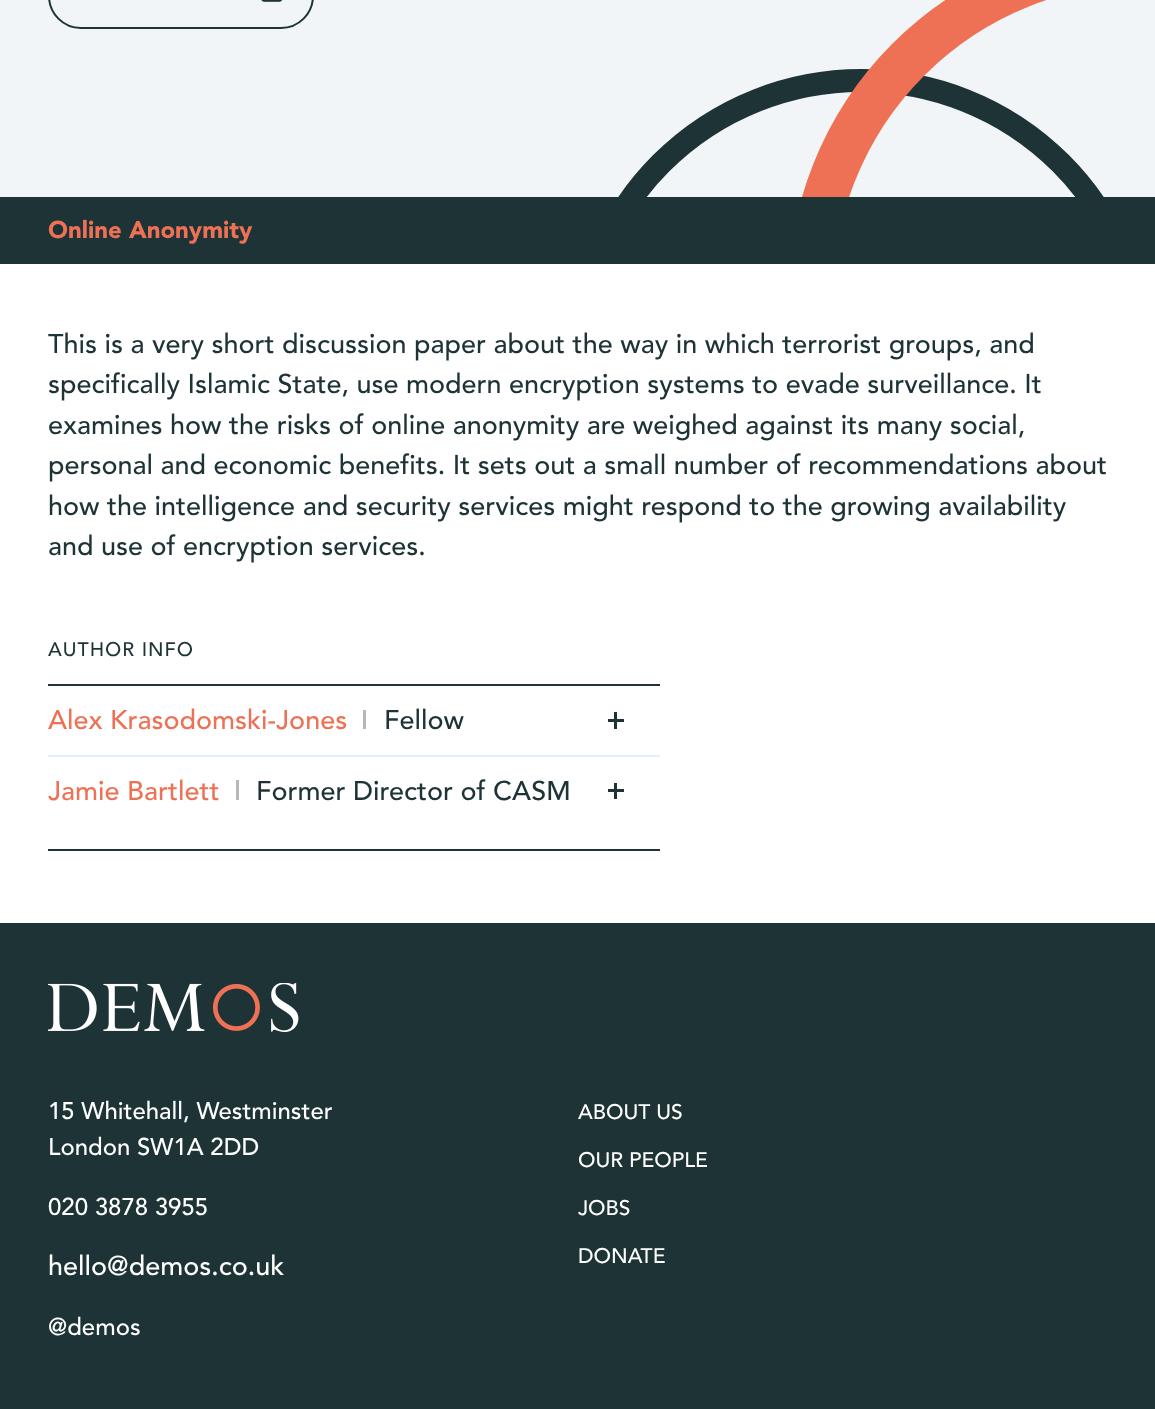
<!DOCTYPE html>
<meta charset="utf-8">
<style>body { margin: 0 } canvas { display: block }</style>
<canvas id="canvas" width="1155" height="1409"></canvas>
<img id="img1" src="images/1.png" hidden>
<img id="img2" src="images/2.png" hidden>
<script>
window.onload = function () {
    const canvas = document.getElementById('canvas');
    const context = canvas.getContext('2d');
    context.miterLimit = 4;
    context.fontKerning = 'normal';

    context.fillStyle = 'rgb(255, 255, 255)';
    context.fillRect(0, 0, 1155, 1409);
    context.fillStyle = 'rgb(242, 245, 247)';
    context.fillRect(0, 0, 1155, 197);
    context.beginPath();
    context.roundRect(49, -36, 264, 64, 33.5);
    context.strokeStyle = 'rgb(29, 51, 54)';
    context.lineWidth = 2;
    context.stroke();
    context.drawImage(document.getElementById('img1'), 261, 0, 22, 2);
    context.fillStyle = 'rgb(29, 51, 54)';
    context.fillRect(0, 197, 1155, 67);
    context.save();
    context.beginPath();
    context.rect(0, 0, 1155, 197);
    context.clip();
    context.beginPath();
    context.arc(861, 363, 282.5, 0, 2 * Math.PI);
    context.lineWidth = 23;
    context.stroke();
    context.beginPath();
    context.arc(1145, 296, 334.5, 0, 2 * Math.PI);
    context.strokeStyle = 'rgb(238, 113, 85)';
    context.lineWidth = 45;
    context.stroke();
    context.restore();
    context.fillRect(48, 684, 612, 2);
    context.fillStyle = 'rgb(182, 185, 186)';
    context.fillRect(363, 710, 3, 19);
    context.fillStyle = 'rgb(29, 51, 54)';
    context.fillRect(614, 712, 3, 17);
    context.fillRect(608, 719, 16, 3);
    context.fillStyle = 'rgb(224, 241, 248)';
    context.fillRect(48, 755, 612, 2);
    context.fillStyle = 'rgb(182, 185, 186)';
    context.fillRect(236, 780, 3, 20);
    context.fillStyle = 'rgb(29, 51, 54)';
    context.fillRect(614, 783, 3, 16);
    context.fillRect(608, 789, 16, 3);
    context.fillRect(48, 849, 612, 2);
    context.fillRect(0, 923, 1155, 486);
    context.drawImage(document.getElementById('img2'), 48, 983, 251, 50);
    context.font = '900 24px Avenir';
    context.fillStyle = 'rgb(238, 113, 85)';
    context.fillText('Online Anonymity', 48, 238);
    context.font = '500 27px Avenir';
    context.fillStyle = 'rgb(29, 51, 54)';
    context.fillText('This is a very short discussion paper about the way in which terrorist groups, and', 48, 353);
    context.fillText('specifically Islamic State, use modern encryption systems to evade surveillance. It', 48, 393);
    context.fillText('examines how the risks of online anonymity are weighed against its many social,', 48, 434);
    context.fillText('personal and economic benefits. It sets out a small number of recommendations about', 48, 474);
    context.fillText('how the intelligence and security services might respond to the growing availability', 48, 515);
    context.fillText('and use of encryption services.', 48, 555);
    context.letterSpacing = '1px';
    context.font = '500 19.5px Avenir';
    context.fillText('AUTHOR INFO', 48, 656);
    context.letterSpacing = '0px';
    context.font = '500 27px Avenir';
    context.fillStyle = 'rgb(238, 113, 85)';
    context.fillText('Alex Krasodomski-Jones', 48, 729);
    context.fillStyle = 'rgb(29, 51, 54)';
    context.fillText('Fellow', 384, 729);
    context.fillStyle = 'rgb(238, 113, 85)';
    context.fillText('Jamie Bartlett', 48, 800);
    context.fillStyle = 'rgb(29, 51, 54)';
    context.fillText('Former Director of CASM', 256, 800);
    context.font = '500 24px Avenir';
    context.fillStyle = 'rgb(255, 255, 255)';
    context.fillText('15 Whitehall, Westminster', 48, 1119);
    context.fillText('London SW1A 2DD', 48, 1155);
    context.fillText('020 3878 3955', 48, 1215);
    context.font = '500 27px Avenir';
    context.fillText('hello@demos.co.uk', 48, 1275);
    context.font = '500 24px Avenir';
    context.fillText('@demos', 48, 1335);
    context.font = '500 21px Avenir';
    context.fillText('ABOUT US', 578, 1119);
    context.fillText('OUR PEOPLE', 578, 1167);
    context.fillText('JOBS', 578, 1215);
    context.fillText('DONATE', 578, 1263);
};
</script>
